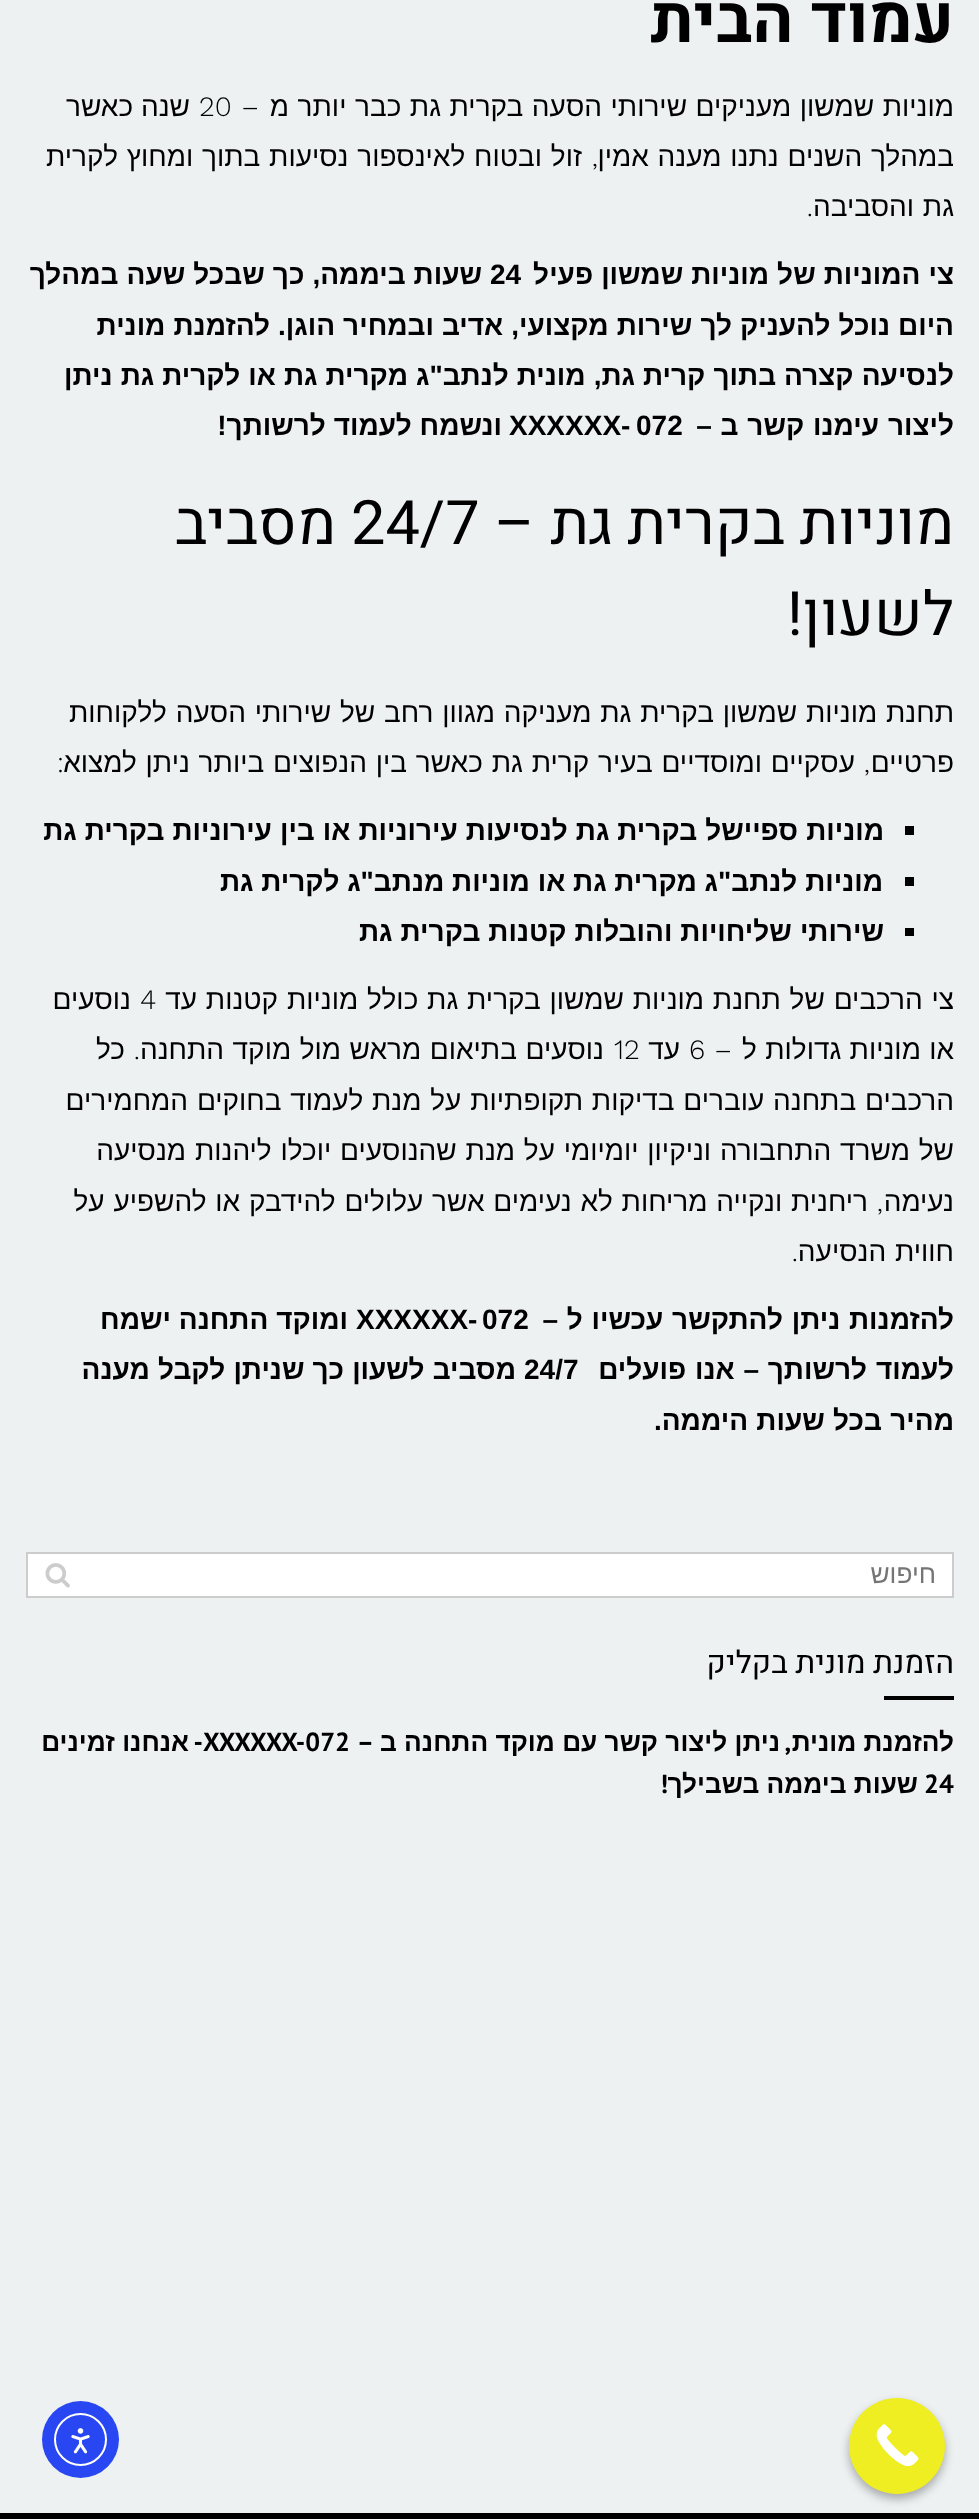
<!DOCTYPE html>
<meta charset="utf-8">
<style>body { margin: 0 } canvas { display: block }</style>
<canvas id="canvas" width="979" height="2519"></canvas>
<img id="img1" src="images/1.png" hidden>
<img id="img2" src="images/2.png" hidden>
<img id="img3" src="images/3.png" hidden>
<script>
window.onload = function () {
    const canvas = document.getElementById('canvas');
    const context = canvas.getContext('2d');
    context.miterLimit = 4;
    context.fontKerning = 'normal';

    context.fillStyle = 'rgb(238, 241, 242)';
    context.fillRect(0, 0, 979, 2519);
    context.fillStyle = 'rgb(0, 0, 0)';
    context.fillRect(905, 826, 9, 9);
    context.fillRect(905, 877, 9, 9);
    context.fillRect(905, 928, 9, 8);
    context.fillStyle = 'rgb(255, 255, 255)';
    context.beginPath();
    context.rect(27, 1553, 926, 44);
    context.fill();
    context.strokeStyle = 'rgb(204, 204, 204)';
    context.lineWidth = 2;
    context.stroke();
    context.drawImage(document.getElementById('img1'), 45, 1563, 25, 25);
    context.fillStyle = 'rgb(0, 0, 0)';
    context.fillRect(884, 1696, 70, 4);
    context.fillRect(0, 2513, 979, 6);
    context.fillStyle = 'rgba(0, 0, 0, 0.3)';
    context.filter = 'blur(5px)';
    context.beginPath();
    context.roundRect(849, 2403, 96, 96, 48);
    context.fill();
    context.filter = 'none';
    context.fillStyle = 'rgb(238, 238, 34)';
    context.beginPath();
    context.arc(897, 2446, 48, 0, 2 * Math.PI);
    context.fill();
    context.drawImage(document.getElementById('img2'), 876, 2424, 43, 43);
    context.fillStyle = 'rgb(40, 71, 243)';
    context.beginPath();
    context.arc(80.5, 2439.5, 38.5, 0, 2 * Math.PI);
    context.fill();
    context.beginPath();
    context.arc(80.5, 2439.5, 25.5, 0, 2 * Math.PI);
    context.strokeStyle = 'rgb(255, 255, 255)';
    context.stroke();
    context.drawImage(document.getElementById('img3'), 71, 2428, 19, 26);
    context.direction = 'rtl';
    context.font = 'bold 66.5px Heebo';
    context.fillStyle = 'rgb(0, 0, 0)';
    context.fillText('עמוד הבית', 954, 42);
    context.wordSpacing = '0.75px';
    context.font = '28px Liberation Sans';
    context.fillText('מוניות שמשון מעניקים שירותי הסעה בקרית גת כבר יותר מ', 954, 116);
    context.wordSpacing = '0px';
    context.font = '300 28px Work Sans';
    context.fillText('–', 259, 116);
    context.direction = 'ltr';
    context.fillText('20', 199, 116);
    context.direction = 'rtl';
    context.font = '28px Liberation Sans';
    context.fillText('שנה כאשר', 190, 116);
    context.wordSpacing = '1px';
    context.fillText('במהלך השנים נתנו מענה אמין', 954, 166);
    context.wordSpacing = '0px';
    context.font = '300 28px Work Sans';
    context.fillText(',', 598, 166);
    context.wordSpacing = '1px';
    context.font = '28px Liberation Sans';
    context.fillText('זול ובטוח לאינספור נסיעות בתוך ומחוץ לקרית', 582, 166);
    context.fillText('גת והסביבה', 954, 216);
    context.wordSpacing = '0px';
    context.font = '300 28px Work Sans';
    context.fillText('.', 813, 216);
    context.wordSpacing = '0.25px';
    context.font = 'bold 28px Liberation Sans';
    context.fillText('צי המוניות של מוניות שמשון פעיל', 954, 284);
    context.wordSpacing = '0px';
    context.direction = 'ltr';
    context.fillText('24', 490, 284);
    context.wordSpacing = '0.25px';
    context.direction = 'rtl';
    context.fillText('שעות ביממה, כך שבכל שעה במהלך', 482, 284);
    context.fillText('היום נוכל להעניק לך שירות מקצועי, אדיב ובמחיר הוגן. להזמנת מונית', 954, 335);
    context.fillText('לנסיעה קצרה בתוך קרית גת, מונית לנתב"ג מקרית גת או לקרית גת ניתן', 954, 385);
    context.wordSpacing = '1px';
    context.fillText('ליצור עימנו קשר ב –', 954, 435);
    context.wordSpacing = '0px';
    context.direction = 'ltr';
    context.fillText('072', 636, 435);
    context.fillText('XXXXXX', 509, 435);
    context.fillText('-', 621, 435);
    context.direction = 'rtl';
    context.fillText('ונשמח לעמוד לרשותך!', 502, 435);
    context.font = '61.25px Heebo';
    context.fillText('מוניות בקרית גת –', 954, 544);
    context.direction = 'ltr';
    context.fillText('24/7', 351, 544);
    context.direction = 'rtl';
    context.fillText('מסביב', 336, 544);
    context.fillText('לשעון!', 954, 635);
    context.wordSpacing = '1px';
    context.font = '28px Liberation Sans';
    context.fillText('תחנת מוניות שמשון בקרית גת מעניקה מגוון רחב של שירותי הסעה ללקוחות', 954, 722);
    context.wordSpacing = '0px';
    context.fillText('פרטיים', 954, 772);
    context.font = '300 28px Work Sans';
    context.fillText(',', 870, 772);
    context.wordSpacing = '1px';
    context.font = '28px Liberation Sans';
    context.fillText('עסקיים ומוסדיים בעיר קרית גת כאשר בין הנפוצים ביותר ניתן למצוא', 855, 772);
    context.wordSpacing = '0px';
    context.font = '300 28px Work Sans';
    context.fillText(':', 64, 772);
    context.wordSpacing = '0.25px';
    context.font = 'bold 28px Liberation Sans';
    context.fillText('מוניות ספיישל בקרית גת לנסיעות עירוניות או בין עירוניות בקרית גת', 884, 840);
    context.wordSpacing = '0px';
    context.fillText('מוניות לנתב"ג מקרית גת או מוניות מנתב"ג לקרית גת', 883, 891);
    context.wordSpacing = '0.25px';
    context.fillText('שירותי שליחויות והובלות קטנות בקרית גת', 884, 941);
    context.wordSpacing = '1px';
    context.font = '28px Liberation Sans';
    context.fillText('צי הרכבים של תחנת מוניות שמשון בקרית גת כולל מוניות קטנות עד', 954, 1009);
    context.wordSpacing = '0px';
    context.direction = 'ltr';
    context.font = '300 28px Work Sans';
    context.fillText('4', 140, 1009);
    context.direction = 'rtl';
    context.font = '28px Liberation Sans';
    context.fillText('נוסעים', 131, 1009);
    context.wordSpacing = '0.5px';
    context.fillText('או מוניות גדולות ל', 954, 1059);
    context.wordSpacing = '0px';
    context.font = '300 28px Work Sans';
    context.fillText('–', 732, 1059);
    context.direction = 'ltr';
    context.fillText('6', 689, 1059);
    context.direction = 'rtl';
    context.font = '28px Liberation Sans';
    context.fillText('עד', 680, 1059);
    context.direction = 'ltr';
    context.font = '300 28px Work Sans';
    context.fillText('12', 614, 1059);
    context.wordSpacing = '0.75px';
    context.direction = 'rtl';
    context.font = '28px Liberation Sans';
    context.fillText('נוסעים בתיאום מראש מול מוקד התחנה', 604, 1059);
    context.wordSpacing = '0px';
    context.fillText('כל', 125, 1059);
    context.font = '300 28px Work Sans';
    context.fillText('.', 140, 1059);
    context.wordSpacing = '1px';
    context.font = '28px Liberation Sans';
    context.fillText('הרכבים בתחנה עוברים בדיקות תקופתיות על מנת לעמוד בחוקים המחמירים', 954, 1110);
    context.fillText('של משרד התחבורה וניקיון יומיומי על מנת שהנוסעים יוכלו ליהנות מנסיעה', 954, 1160);
    context.wordSpacing = '0px';
    context.fillText('נעימה', 954, 1211);
    context.font = '300 28px Work Sans';
    context.fillText(',', 883, 1211);
    context.wordSpacing = '1px';
    context.font = '28px Liberation Sans';
    context.fillText('ריחנית ונקייה מריחות לא נעימים אשר עלולים להידבק או להשפיע על', 868, 1211);
    context.fillText('חווית הנסיעה', 954, 1261);
    context.wordSpacing = '0px';
    context.font = '300 28px Work Sans';
    context.fillText('.', 798, 1261);
    context.wordSpacing = '1px';
    context.font = 'bold 28px Liberation Sans';
    context.fillText('להזמנות ניתן להתקשר עכשיו ל –', 954, 1329);
    context.wordSpacing = '0px';
    context.direction = 'ltr';
    context.fillText('072', 482, 1329);
    context.fillText('XXXXXX', 356, 1329);
    context.fillText('-', 468, 1329);
    context.direction = 'rtl';
    context.fillText('ומוקד התחנה ישמח', 348, 1329);
    context.wordSpacing = '1px';
    context.fillText('לעמוד לרשותך – אנו פועלים', 954, 1379);
    context.wordSpacing = '0px';
    context.direction = 'ltr';
    context.fillText('24/7', 524, 1379);
    context.wordSpacing = '0.25px';
    context.direction = 'rtl';
    context.fillText('מסביב לשעון כך שניתן לקבל מענה', 516, 1379);
    context.wordSpacing = '0.5px';
    context.fillText('מהיר בכל שעות היממה.', 954, 1430);
    context.wordSpacing = '0px';
    context.font = '26.25px Liberation Sans';
    context.fillStyle = 'rgb(117, 117, 117)';
    context.fillText('חיפוש', 936, 1583);
    context.font = '31.5px Heebo';
    context.fillStyle = 'rgb(0, 0, 0)';
    context.fillText('הזמנת מונית בקליק', 954, 1673);
    context.font = 'bold 26.25px Liberation Sans';
    context.fillText('ניתן ליצור קשר עם מוקד התחנה ב', 780, 1751);
    context.font = 'bold 26.25px PT Sans';
    context.fillText('–', 374, 1751);
    context.fillText('-', 203, 1751);
    context.direction = 'ltr';
    context.fillText('XXXXXX-072', 203, 1751);
    context.direction = 'rtl';
    context.font = 'bold 26.25px Liberation Sans';
    context.fillText('אנחנו זמינים', 189, 1751);
    context.font = 'bold 26.25px PT Sans';
    context.fillText(',', 791, 1751);
    context.font = 'bold 26.25px Liberation Sans';
    context.fillText('להזמנת מונית', 954, 1751);
    context.direction = 'ltr';
    context.font = 'bold 26.25px PT Sans';
    context.fillText('24', 924, 1793);
    context.direction = 'rtl';
    context.font = 'bold 26.25px Liberation Sans';
    context.fillText('שעות ביממה בשבילך', 918, 1793);
    context.font = 'bold 26.25px PT Sans';
    context.fillText('!', 668, 1793);
};
</script>
